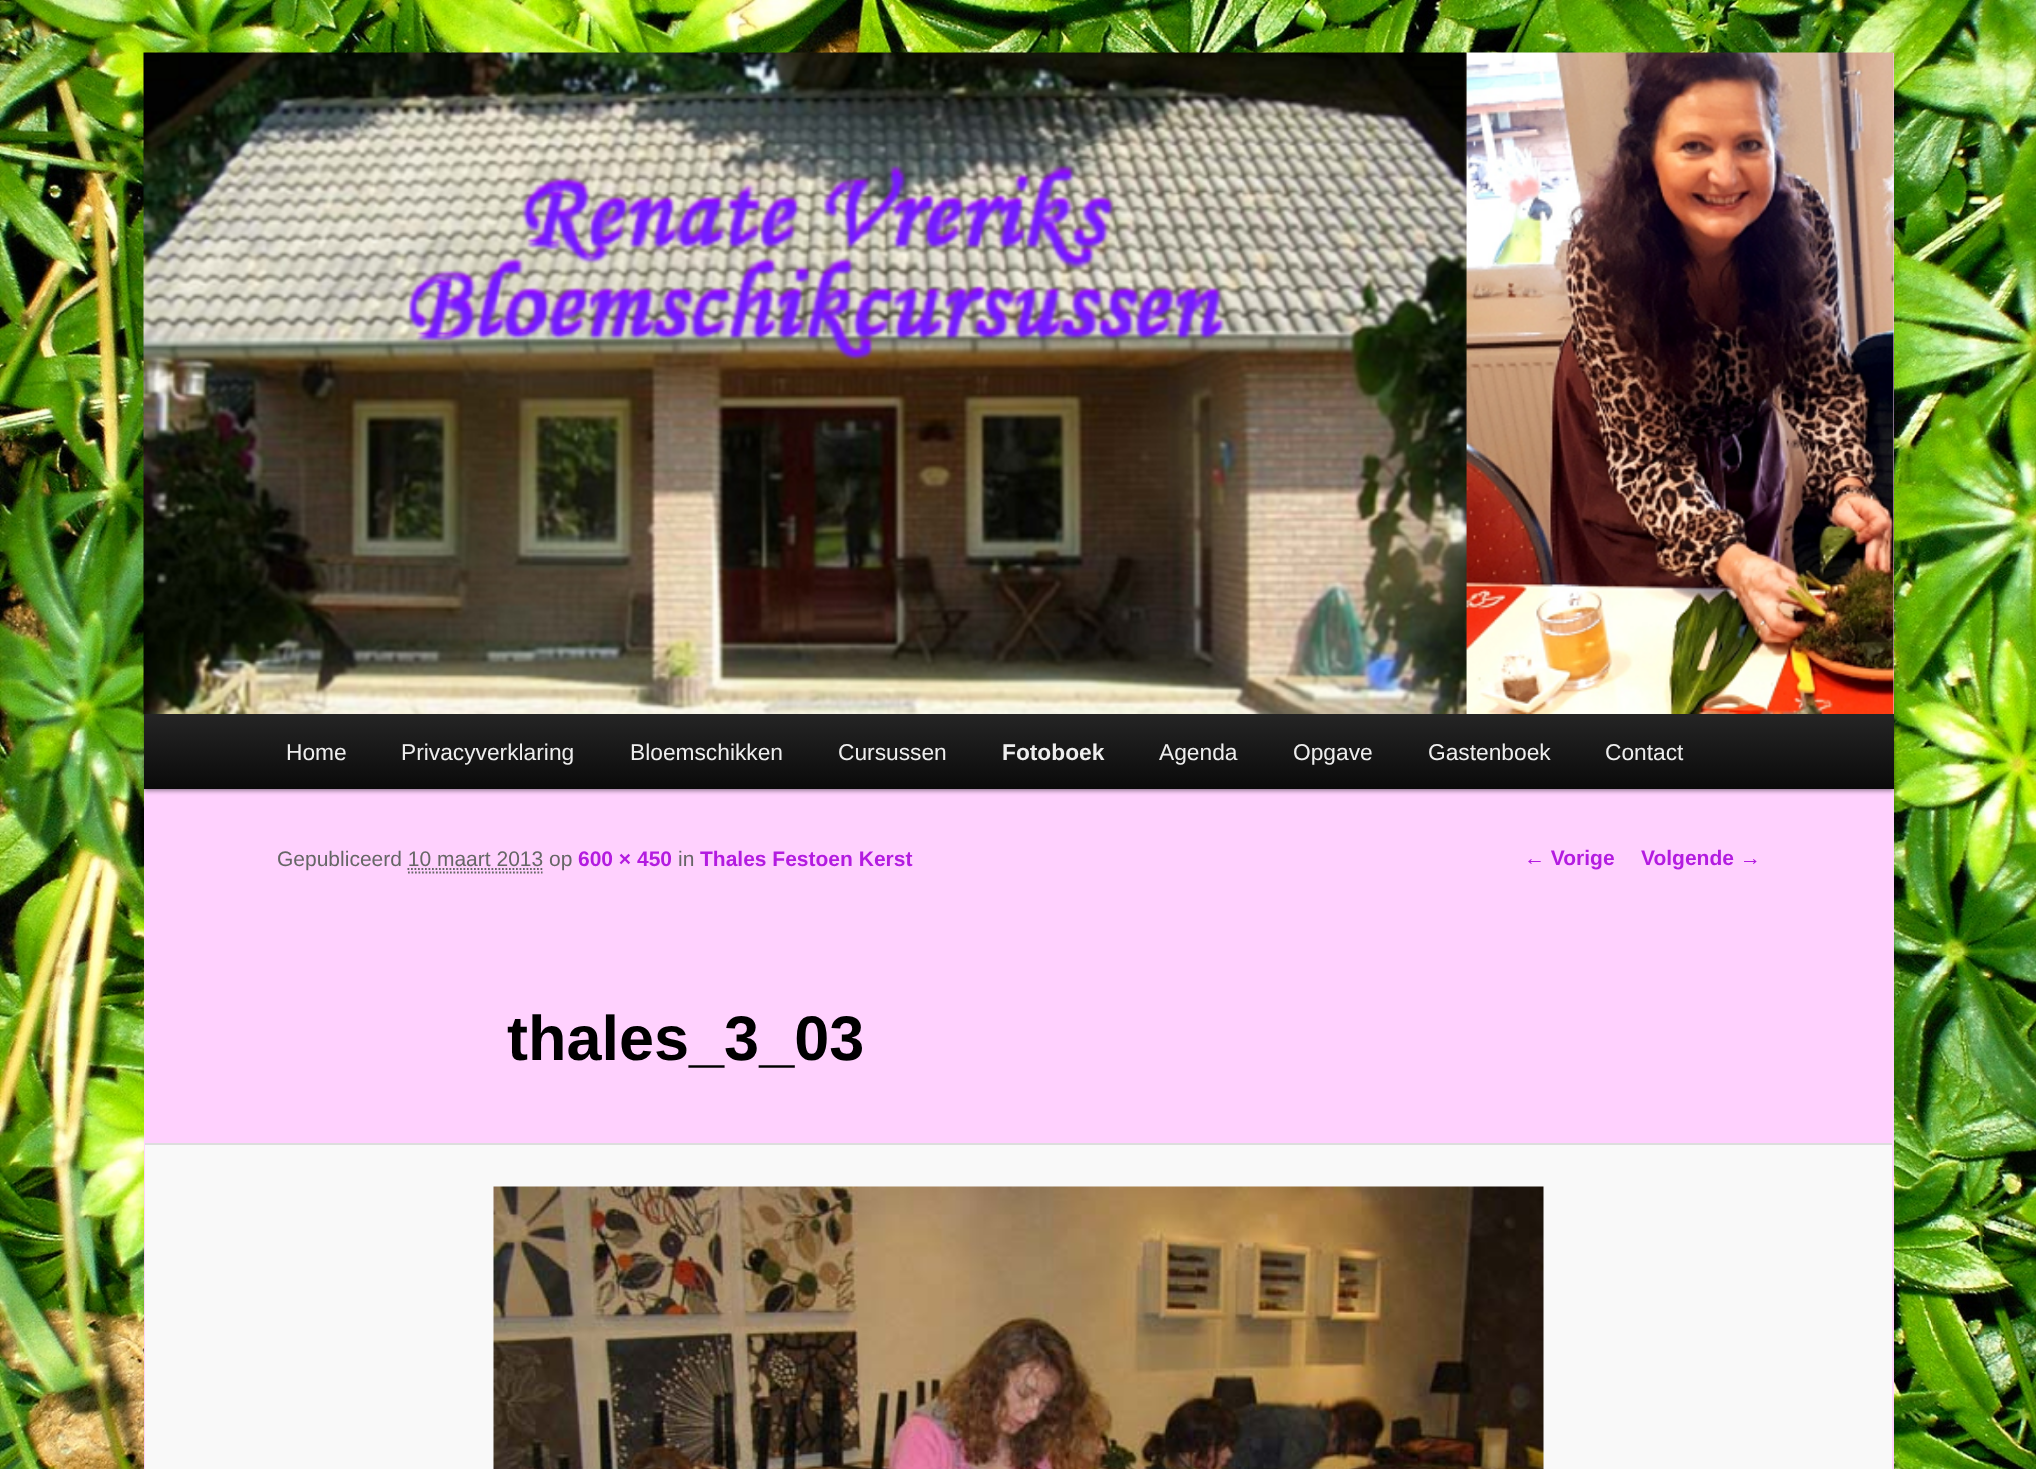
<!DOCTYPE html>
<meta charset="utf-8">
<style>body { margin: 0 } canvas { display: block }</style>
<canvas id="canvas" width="2036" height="1469"></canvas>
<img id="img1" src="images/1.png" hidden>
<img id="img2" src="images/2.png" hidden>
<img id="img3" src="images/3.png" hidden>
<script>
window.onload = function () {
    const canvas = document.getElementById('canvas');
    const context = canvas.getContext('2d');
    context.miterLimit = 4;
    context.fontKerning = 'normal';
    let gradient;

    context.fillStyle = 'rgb(255, 255, 255)';
    context.fillRect(0, 0, 2036, 1469);
    context.drawImage(document.getElementById('img1'), 0, 0, 2036, 1469);
    context.fillStyle = 'rgb(255, 209, 254)';
    context.fillRect(144, 53, 1750, 1416);
    context.fillStyle = 'rgba(0, 0, 0, 0.4)';
    context.filter = 'blur(2px)';
    context.beginPath();
    context.rect(144, 716, 1750, 75);
    context.fill();
    context.filter = 'none';
    context.drawImage(document.getElementById('img2'), 143, 52, 1751, 662);
    gradient = context.createLinearGradient(1019, 714, 1019, 789);
    gradient.addColorStop(0, 'rgb(37, 37, 37)');
    gradient.addColorStop(1, 'rgb(10, 10, 10)');
    context.fillStyle = gradient;
    context.fillRect(144, 714, 1750, 75);
    context.beginPath();
    context.moveTo(407.5, 869);
    context.lineTo(542.5, 869);
    context.strokeStyle = 'rgb(102, 102, 102)';
    context.lineWidth = 1.8;
    context.setLineDash([1.75, 1.75]);
    context.stroke();
    context.beginPath();
    context.moveTo(408, 872.5);
    context.lineTo(542.5, 872.5);
    context.stroke();
    context.fillStyle = 'rgb(249, 249, 249)';
    context.fillRect(145, 1145, 1747, 324);
    context.fillStyle = 'rgb(221, 221, 221)';
    context.fillRect(145, 1143, 1747, 2);
    context.drawImage(document.getElementById('img3'), 493, 1186, 1051, 283);
    context.font = '22.75px Liberation Sans';
    context.fillStyle = 'rgb(238, 238, 238)';
    context.fillText('Home', 286, 760);
    context.fillText('Privacyverklaring', 401, 760);
    context.fillText('Bloemschikken', 630, 760);
    context.fillText('Cursussen', 838, 760);
    context.font = 'bold 22.75px Liberation Sans';
    context.fillText('Fotoboek', 1002, 760);
    context.font = '22.75px Liberation Sans';
    context.fillText('Agenda', 1159, 760);
    context.fillText('Opgave', 1293, 760);
    context.fillText('Gastenboek', 1428, 760);
    context.fillText('Contact', 1605, 760);
    context.font = '21px Liberation Sans';
    context.fillStyle = 'rgb(102, 102, 102)';
    context.fillText('Gepubliceerd 10 maart 2013 op', 277, 866);
    context.font = 'bold 21px Liberation Sans';
    context.fillStyle = 'rgb(179, 27, 224)';
    context.fillText('600 × 450', 578, 866);
    context.font = '21px Liberation Sans';
    context.fillStyle = 'rgb(102, 102, 102)';
    context.fillText('in', 678, 866);
    context.font = 'bold 21px Liberation Sans';
    context.fillStyle = 'rgb(179, 27, 224)';
    context.fillText('Thales Festoen Kerst', 700, 866);
    context.font = 'bold 63px Liberation Sans';
    context.fillStyle = 'rgb(0, 0, 0)';
    context.fillText('thales_3_03', 507, 1060);
    context.font = 'bold 21px Liberation Sans';
    context.fillStyle = 'rgb(179, 27, 224)';
    context.fillText('← Vorige', 1524, 865);
    context.fillText('Volgende →', 1641, 865);
};
</script>
